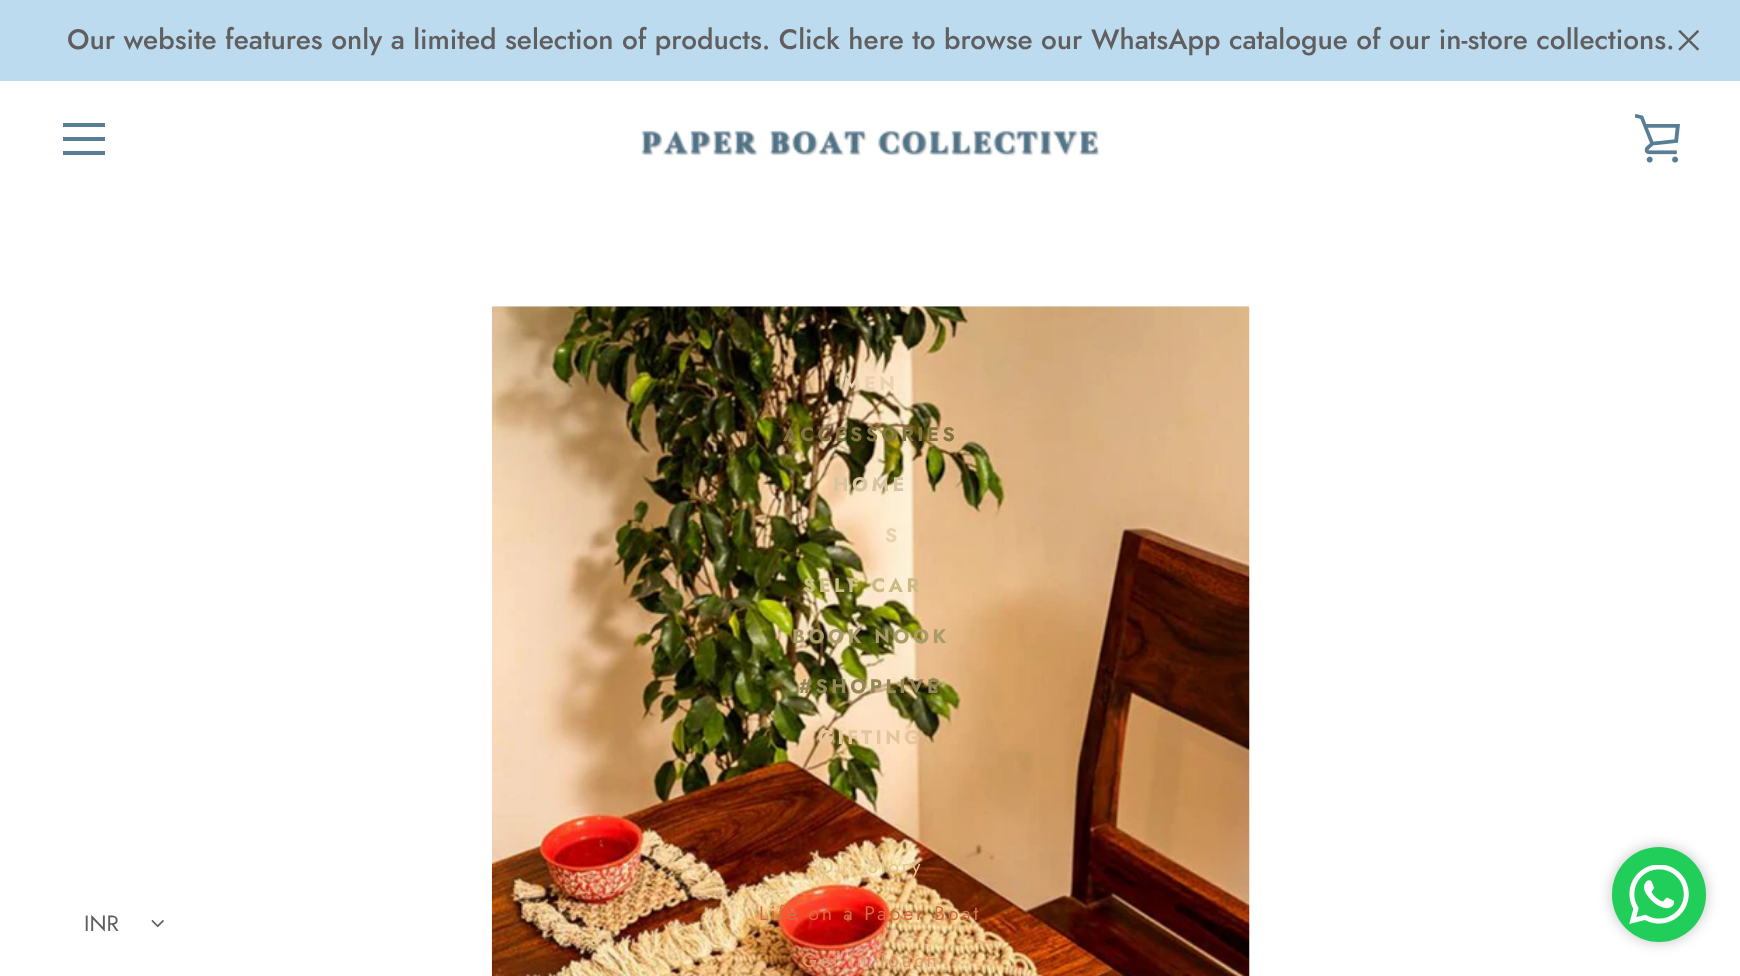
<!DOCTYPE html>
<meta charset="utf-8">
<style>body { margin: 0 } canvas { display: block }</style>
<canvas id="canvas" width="1740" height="976"></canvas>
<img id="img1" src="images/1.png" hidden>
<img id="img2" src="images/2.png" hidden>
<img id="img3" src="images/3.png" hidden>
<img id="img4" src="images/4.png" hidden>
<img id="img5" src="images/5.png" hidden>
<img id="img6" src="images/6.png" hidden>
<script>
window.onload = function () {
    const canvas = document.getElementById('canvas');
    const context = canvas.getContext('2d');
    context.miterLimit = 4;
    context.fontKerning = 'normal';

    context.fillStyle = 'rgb(255, 255, 255)';
    context.fillRect(0, 0, 1740, 976);
    context.fillStyle = 'rgb(188, 219, 238)';
    context.fillRect(0, 0, 1740, 81);
    context.drawImage(document.getElementById('img1'), 1678, 30, 21, 21);
    context.drawImage(document.getElementById('img2'), 641, 130, 459, 26);
    context.drawImage(document.getElementById('img3'), 1635, 114, 45, 49);
    context.fillStyle = 'rgb(87, 126, 149)';
    context.fillRect(63, 123, 42, 4);
    context.fillRect(63, 137, 42, 4);
    context.fillRect(63, 151, 42, 4);
    context.drawImage(document.getElementById('img4'), 151, 920, 13, 8);
    context.drawImage(document.getElementById('img5'), 491, 306, 759, 670);
    context.fillStyle = 'rgb(194, 194, 194)';
    context.filter = 'blur(7px)';
    context.beginPath();
    context.roundRect(1612, 847, 94, 95, 47);
    context.fill();
    context.filter = 'none';
    context.fillStyle = 'rgb(34, 206, 90)';
    context.beginPath();
    context.roundRect(1612, 847, 94, 95, 47);
    context.fill();
    context.drawImage(document.getElementById('img6'), 1629, 865, 60, 59);
    context.font = '500 28px Jost';
    context.fillStyle = 'rgb(96, 94, 94)';
    context.fillText('Our website features only a limited selection of products. Click here to browse our WhatsApp catalogue of our in-store collections.', 67, 49);
    context.letterSpacing = '3.5px';
    context.font = 'bold 19.6px Jost';
    context.fillStyle = 'rgb(233, 208, 174)';
    context.fillText('MEN', 843, 390);
    context.fillStyle = 'rgb(131, 115, 64)';
    context.fillText('ACCESSORIES', 783, 441);
    context.fillStyle = 'rgb(216, 196, 160)';
    context.fillText('HOME', 833, 491);
    context.fillStyle = 'rgb(233, 208, 174)';
    context.fillText('S', 885, 542);
    context.fillStyle = 'rgb(202, 187, 132)';
    context.fillText('SELF CAR', 803, 592);
    context.fillStyle = 'rgb(170, 154, 105)';
    context.fillText('BOOK NOOK', 792, 643);
    context.fillStyle = 'rgb(147, 134, 87)';
    context.fillText('#SHOPLIVE', 799, 693);
    context.fillStyle = 'rgb(229, 198, 156)';
    context.fillText('GIFTING', 818, 744);
    context.letterSpacing = '2.75px';
    context.font = '19.6px Jost';
    context.fillStyle = 'rgb(226, 194, 142)';
    context.fillText('Our Story', 818, 873);
    context.fillStyle = 'rgb(213, 107, 67)';
    context.fillText('Life on a Paper Boat', 759, 920);
    context.fillStyle = 'rgb(221, 151, 107)';
    context.fillText('Get In Touch', 802, 967);
    context.letterSpacing = '0px';
    context.font = '22px Jost';
    context.fillStyle = 'rgb(96, 94, 94)';
    context.fillText('INR', 84, 931);
};
</script>
